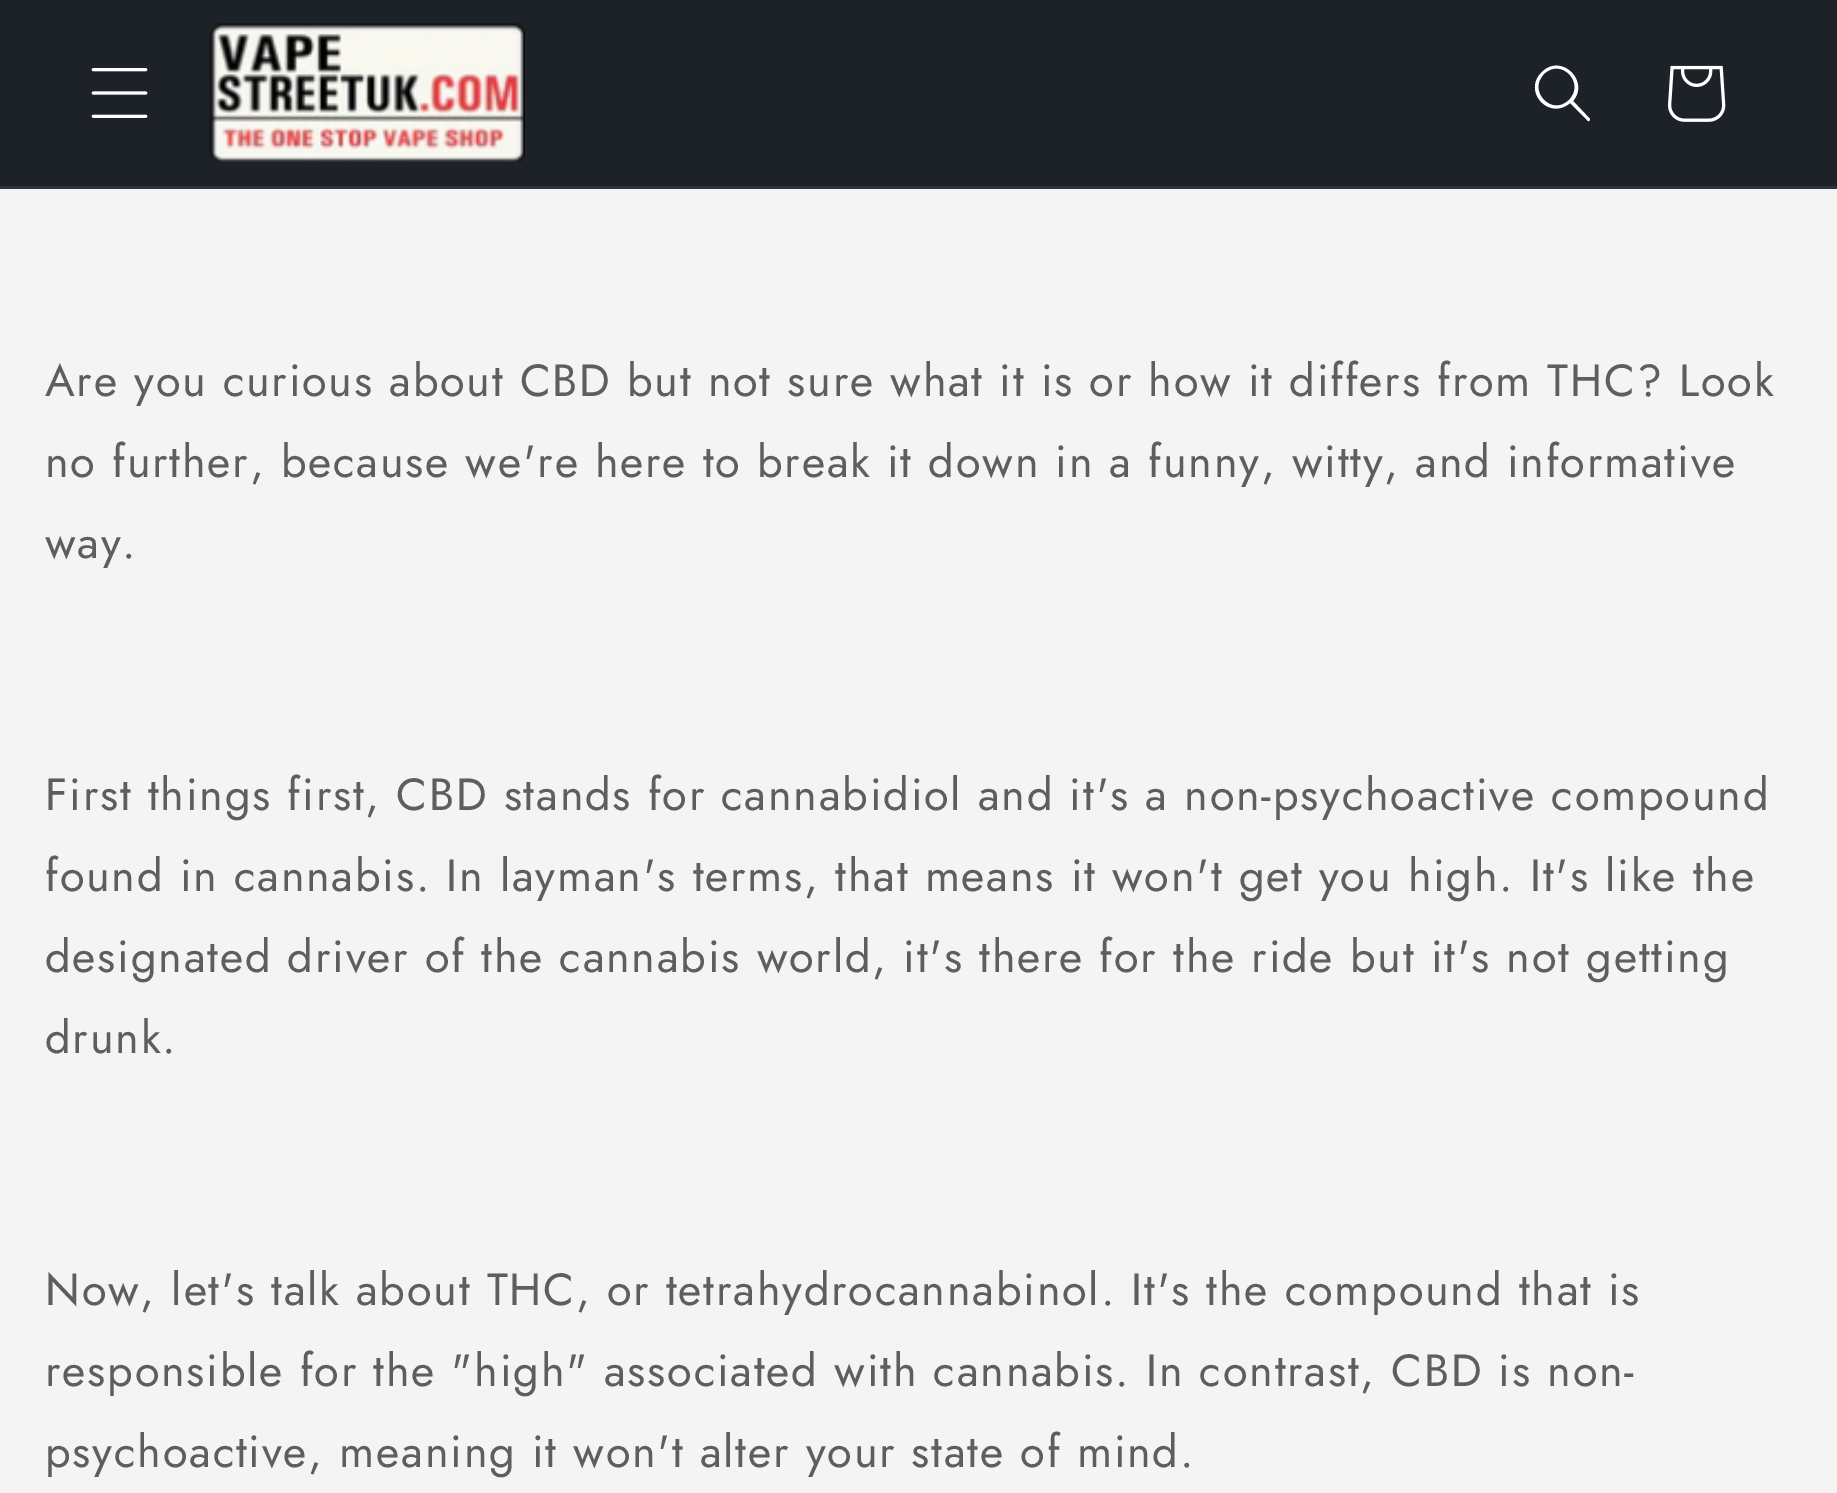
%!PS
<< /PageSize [1837 1493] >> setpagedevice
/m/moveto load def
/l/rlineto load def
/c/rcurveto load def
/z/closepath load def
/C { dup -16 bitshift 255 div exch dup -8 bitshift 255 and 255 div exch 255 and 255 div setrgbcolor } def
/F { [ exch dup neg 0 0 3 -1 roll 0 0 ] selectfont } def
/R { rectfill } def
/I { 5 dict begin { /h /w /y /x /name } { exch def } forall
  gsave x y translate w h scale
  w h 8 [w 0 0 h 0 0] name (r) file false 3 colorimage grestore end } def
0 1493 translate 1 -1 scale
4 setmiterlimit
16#F4F4F4 C
0 0 1837 1493 R
16#1C2228 C
0 0 1837 186 R
16#2E3439 C
0 186 1837 3 R
(1.rgb) 91 68 57 50 I
(2.rgb) 209 23 316 139 I
16#FFFFFF C
1569 100 m -17 17 -42 -9 -25 -26 c 17 -17 42 9 25 26 c 1570 103 m -21 18 -48 -12 -28 -31 c 19 -19 48 9 31 29 c 17 18 l 0 2 -2 3 -3 1 c z eofill
(3.rgb) 1668 65 58 57 I
/Jost-Regular 45 F
16#5D5E5F C
45 396 m 1.8 0 (Are you curious about CBD but not sure what it is or how it differs from THC? Look) ashow
45 477 m 1.8 0 (no further, because we're here to break it down in a funny, witty, and informative) ashow
45 558 m 1.8 0 (way.) ashow
45 810 m 1.8 0 (First things first, CBD stands for cannabidiol and it's a non-psychoactive compound) ashow
45 891 m 1.8 0 (found in cannabis. In layman's terms, that means it won't get you high. It's like the) ashow
45 972 m 1.8 0 (designated driver of the cannabis world, it's there for the ride but it's not getting) ashow
45 1053 m 1.8 0 (drunk.) ashow
45 1305 m 1.8 0 (Now, let's talk about THC, or tetrahydrocannabinol. It's the compound that is) ashow
45 1386 m 1.8 0 (responsible for the "high" associated with cannabis. In contrast, CBD is non-) ashow
45 1467 m 1.8 0 (psychoactive, meaning it won't alter your state of mind.) ashow
showpage
